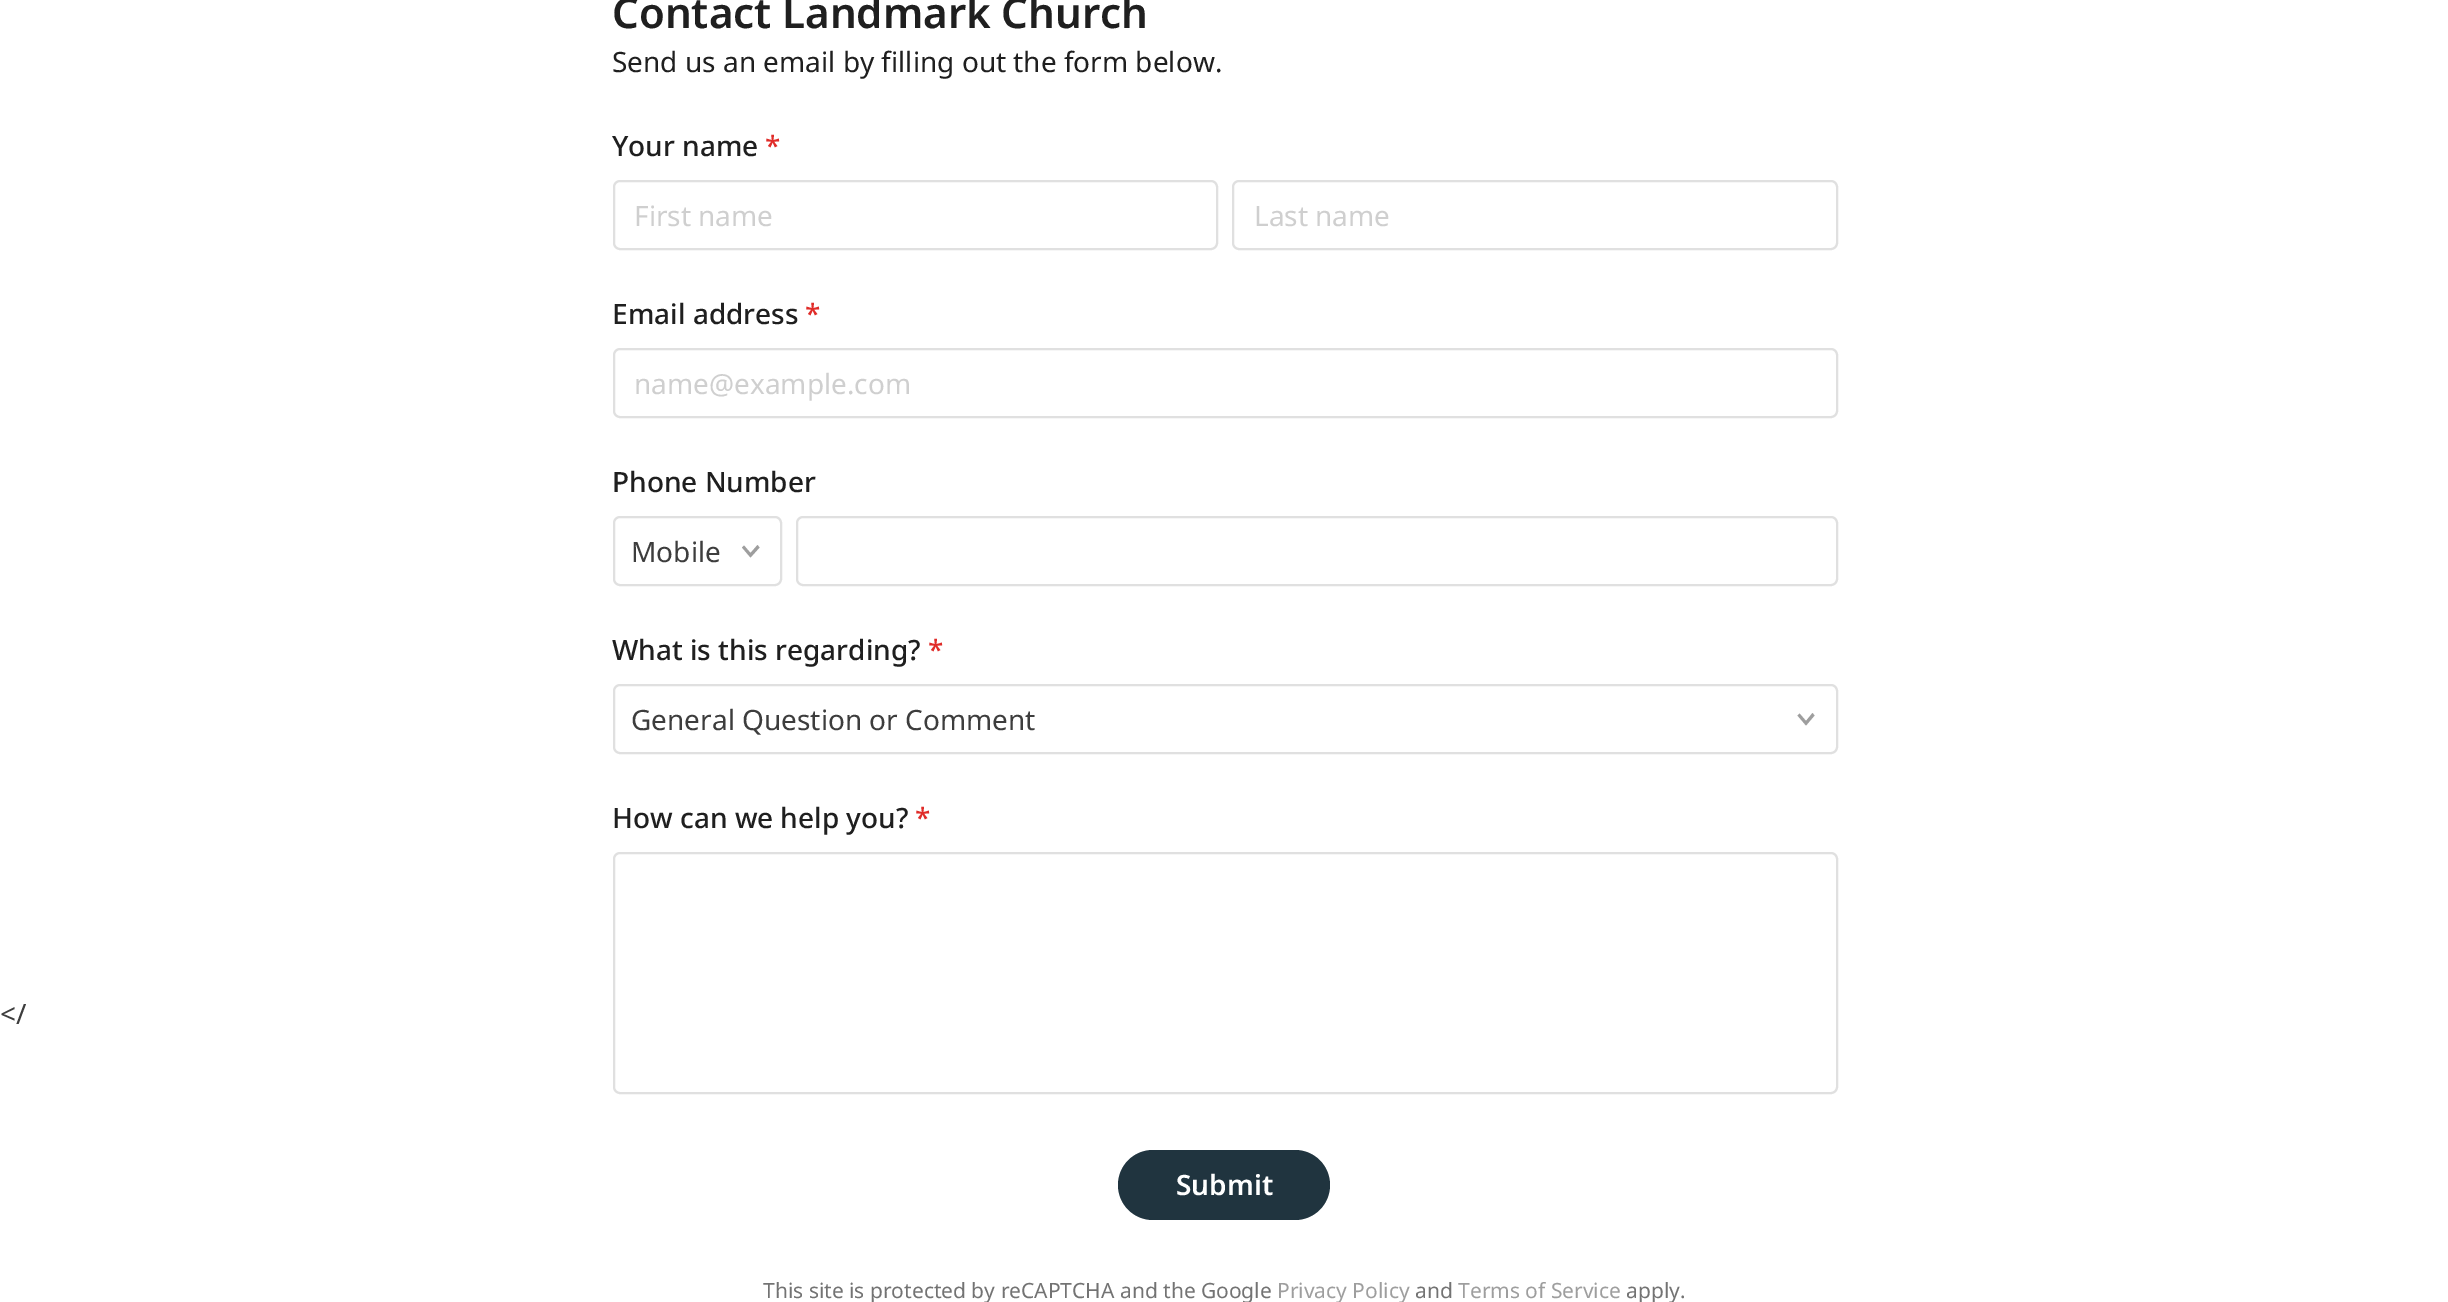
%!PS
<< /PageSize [2448 1302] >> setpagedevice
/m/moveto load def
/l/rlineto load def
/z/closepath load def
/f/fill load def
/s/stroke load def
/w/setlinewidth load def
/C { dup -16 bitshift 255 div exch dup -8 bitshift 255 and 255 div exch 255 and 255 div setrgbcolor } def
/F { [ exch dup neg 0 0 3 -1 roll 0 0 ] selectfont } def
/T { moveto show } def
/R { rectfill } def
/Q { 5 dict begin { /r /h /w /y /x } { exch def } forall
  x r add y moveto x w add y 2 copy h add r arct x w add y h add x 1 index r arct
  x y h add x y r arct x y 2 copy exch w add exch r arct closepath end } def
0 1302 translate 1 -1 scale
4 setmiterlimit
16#FFFFFF C
0 0 2448 1302 R
/NotoSans-Regular 28 F
16#3D3D3D C
(</) 0 1024 T
/NotoSans-SemiBold 42 F
16#1F1F1F C
(Contact Landmark Church) 612 28 T
/NotoSans-Regular 28 F
(Send us an email by filling out the form below.) 612 72 T
/NotoSans-Medium 28 F
(Your name) 612 156 T
16#E02C29 C
(*) 765 156 T
16#E0E0E0 C
2 w
614 181 603 68 6 Q s
/NotoSans-Regular 28 F
16#CFCFCF C
(First name) 634 226 T
16#E0E0E0 C
1233 181 604 68 6 Q s
16#CFCFCF C
(Last name) 1254 226 T
/NotoSans-Medium 28 F
16#1F1F1F C
(Email address) 612 324 T
16#E02C29 C
(*) 805 324 T
16#E0E0E0 C
614 349 1223 68 6 Q s
/NotoSans-Regular 28 F
16#CFCFCF C
(name@example.com) 634 394 T
/NotoSans-Medium 28 F
16#1F1F1F C
(Phone Number) 612 492 T
16#9E9E9E C
759.5 547.5 m -2 -2.5 l -7 8 l -6.5 -7.5 l -2 2 l 8.5 10 l z f
16#E0E0E0 C
614 517 167 68 6 Q s
/NotoSans-Regular 28 F
16#3D3D3D C
(Mobile) 631 562 T
16#E0E0E0 C
797 517 1040 68 6 Q s
/NotoSans-Medium 28 F
16#1F1F1F C
(What is this regarding?) 612 660 T
16#E02C29 C
(*) 928 660 T
16#9E9E9E C
1814.5 715.5 m -2 -2.5 l -6.5 8 l -6.5 -7.5 l -2 2 l 8.5 10 l z f
16#E0E0E0 C
614 685 1223 68 6 Q s
/NotoSans-Regular 28 F
16#3D3D3D C
(General Question or Comment) 631 730 T
/NotoSans-Medium 28 F
16#1F1F1F C
(How can we help you?) 612 828 T
16#E02C29 C
(*) 915 828 T
16#E0E0E0 C
614 853 1223 240 6 Q s
16#20343F C
1118 1150 212 70 35 Q f
/NotoSans-SemiBold 28 F
16#FFFFFF C
(Submit) 1176 1195 T
/NotoSans-Regular 21 F
16#737373 C
(This site is protected by reCAPTCHA and the Google) 763 1298 T
16#9E9E9E C
(Privacy Policy) 1277 1298 T
16#737373 C
(and) 1415 1298 T
16#9E9E9E C
(Terms of Service) 1458 1298 T
16#737373 C
(apply.) 1626 1298 T
showpage
